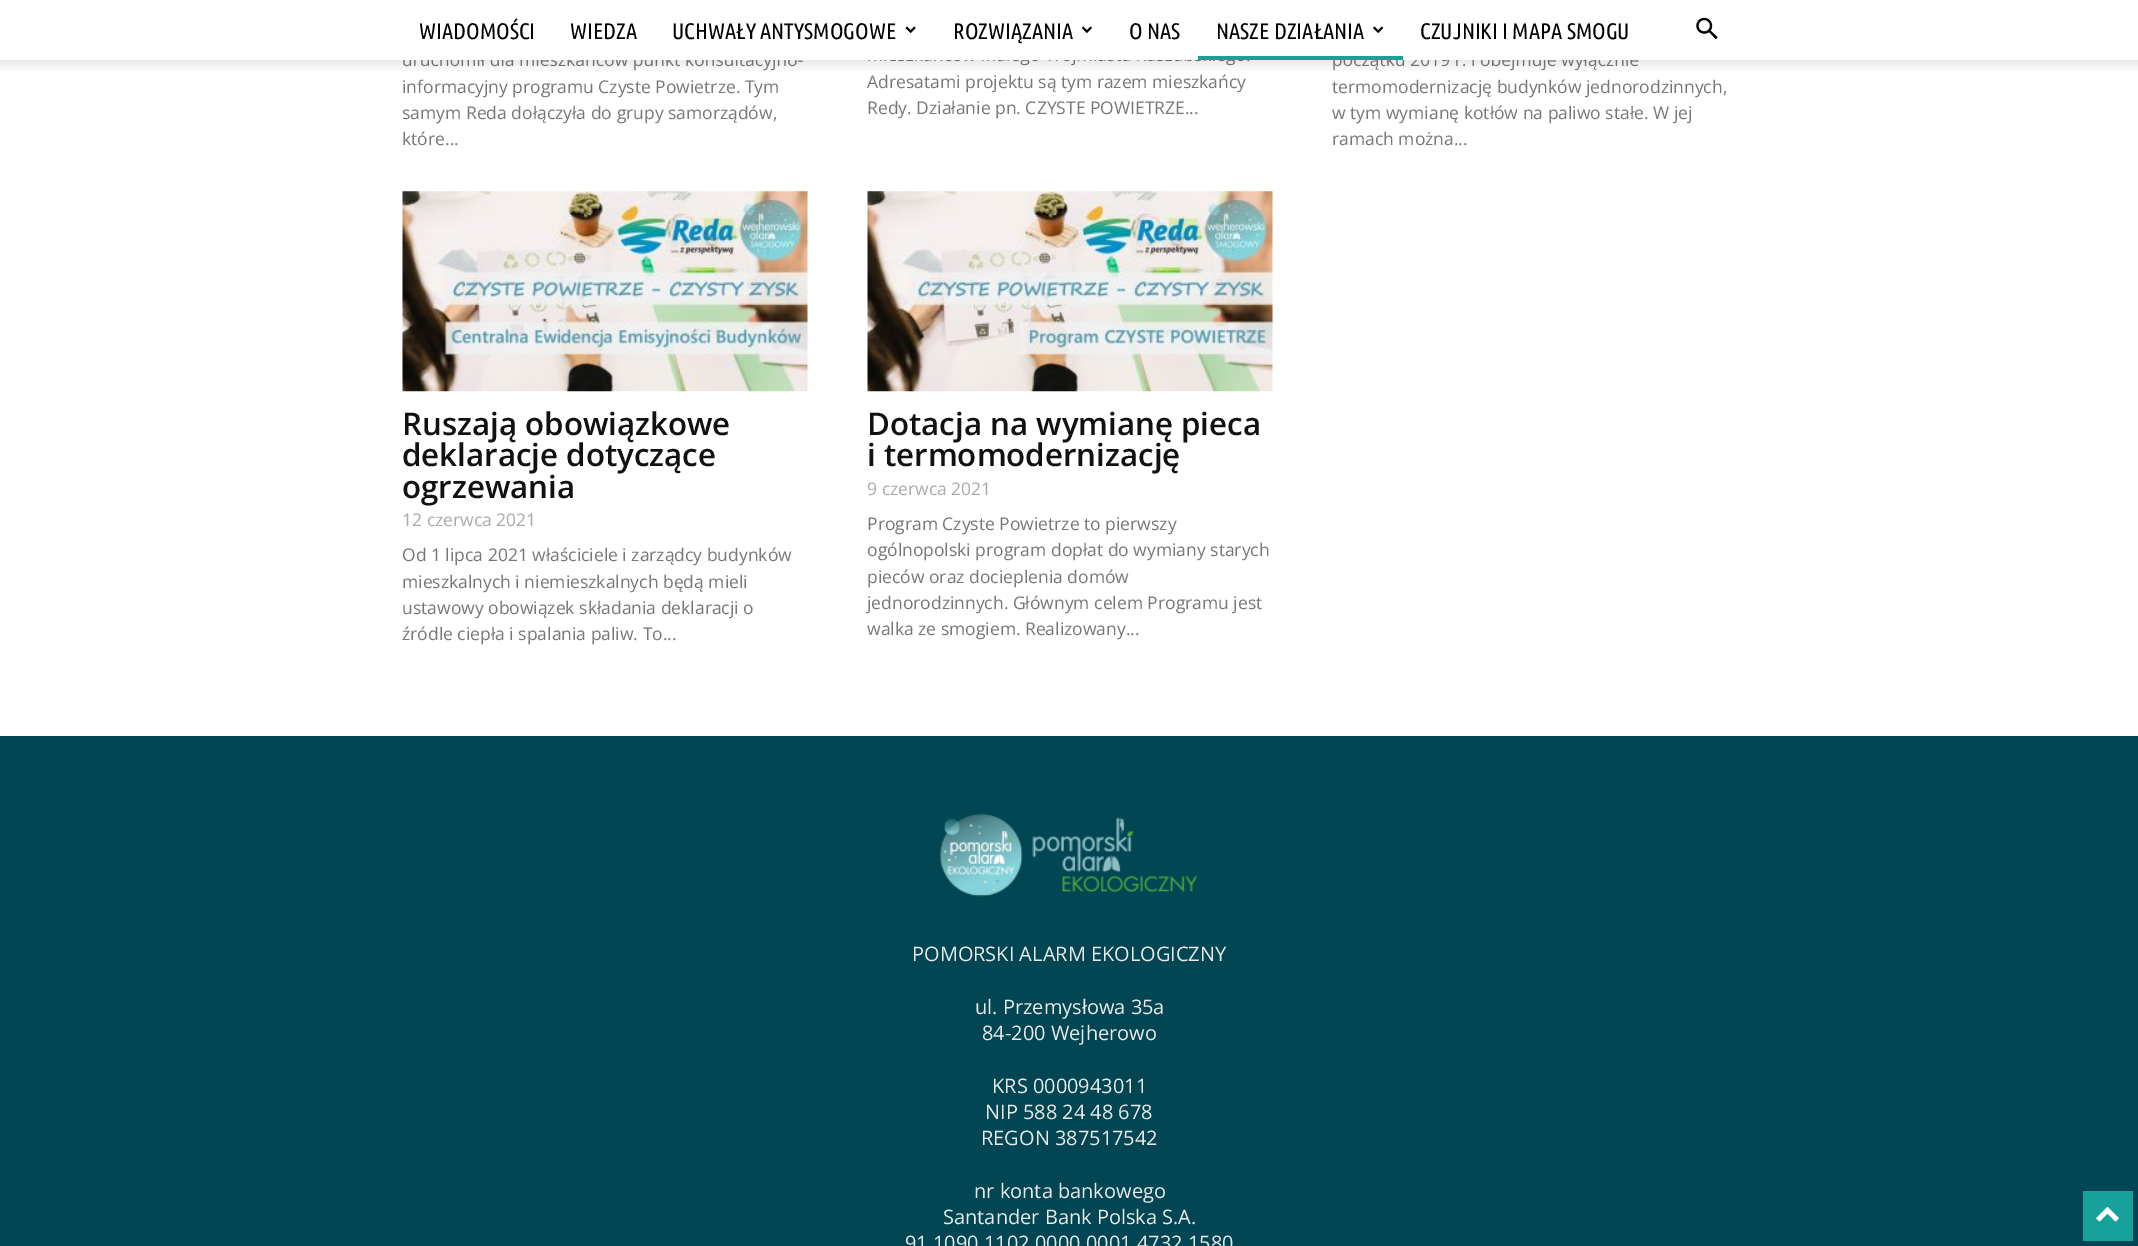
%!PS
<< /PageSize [2138 1246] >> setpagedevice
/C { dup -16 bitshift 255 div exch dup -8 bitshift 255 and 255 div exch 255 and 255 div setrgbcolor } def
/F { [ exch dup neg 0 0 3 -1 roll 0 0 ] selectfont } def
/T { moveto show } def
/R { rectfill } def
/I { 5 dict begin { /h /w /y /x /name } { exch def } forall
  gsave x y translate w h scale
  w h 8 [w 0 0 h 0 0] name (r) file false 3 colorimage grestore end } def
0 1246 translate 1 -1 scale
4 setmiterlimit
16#FFFFFF C
0 0 2138 1246 R
/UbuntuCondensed-Regular 22.5 F
16#000000 C
(WIADOMOŚCI) 419 39 T
(WIEDZA) 570 39 T
(UCHWAŁY ANTYSMOGOWE) 672 39 T
(1.rgb) 905 26 11 7 I
(ROZWIĄZANIA) 953 39 T
(2.rgb) 1081 26 11 7 I
(O NAS) 1129 39 T
(NASZE DZIAŁANIA) 1216 39 T
(3.rgb) 1373 26 11 7 I
16#16A29A C
1198 56 205 4 R
16#000000 C
(CZUJNIKI I MAPA SMOGU) 1420 39 T
(4.rgb) 1696 17 22 22 I
/OpenSans-Regular 17.5 F
16#777777 C
(-) 798 66 T
(.) 1462 66 T
(5.rgb) 0 60 2138 11 I
(informacyjny programu Czyste Powietrze. Tym) 402 93 T
(samym Reda dołączyła do grupy samorządów,) 402 119 T
(które...) 402 145 T
(Adresatami projektu są tym razem mieszkańcy) 867 88 T
(Redy. Działanie pn. CZYSTE POWIETRZE...) 867 114 T
(termomodernizację budynków jednorodzinnych,) 1332 93 T
(w tym wymianę kotłów na paliwo stałe. W jej) 1332 119 T
(ramach można...) 1332 145 T
(6.rgb) 402 191 406 201 I
/OpenSans-SemiBold 31.25 F
16#111111 C
(Ruszają obowiązkowe) 402 435 T
(deklaracje dotyczące) 402 466 T
(ogrzewania) 402 498 T
/OpenSans-Regular 17.5 F
16#AAAAAA C
(12 czerwca 2021) 402 526 T
16#777777 C
(Od 1 lipca 2021 właściciele i zarządcy budynków) 402 561 T
(mieszkalnych i niemieszkalnych będą mieli) 402 588 T
(ustawowy obowiązek składania deklaracji o) 402 614 T
(źródle ciepła i spalania paliw. To...) 402 640 T
(7.rgb) 867 191 406 201 I
/OpenSans-SemiBold 31.25 F
16#111111 C
(Dotacja na wymianę pieca) 867 435 T
(i termomodernizację) 867 466 T
/OpenSans-Regular 17.5 F
16#AAAAAA C
(9 czerwca 2021) 867 495 T
16#777777 C
(Program Czyste Powietrze to pierwszy) 867 530 T
(ogólnopolski program dopłat do wymiany starych) 867 556 T
(pieców oraz docieplenia domów) 867 583 T
(jednorodzinnych. Głównym celem Programu jest) 867 609 T
(walka ze smogiem. Realizowany...) 867 635 T
16#014652 C
0 736 2138 510 R
(8.rgb) 940 813 258 84 I
/OpenSans-Regular 20 F
16#EAEAEA C
(POMORSKI ALARM EKOLOGICZNY) 912 961 T
(ul. Przemysłowa 35a) 975 1014 T
(84-200 Wejherowo) 982 1040 T
(KRS 0000943011) 992 1093 T
(NIP 588 24 48 678) 985 1119 T
(REGON 387517542) 981 1145 T
(nr konta bankowego) 974 1198 T
(Santander Bank Polska S.A.) 943 1224 T
(91 1090 1102 0000 0001 4732 1580) 905 1250 T
16#16A29A C
2083 1191 50 50 R
(9.rgb) 2096 1207 23 15 I
showpage
